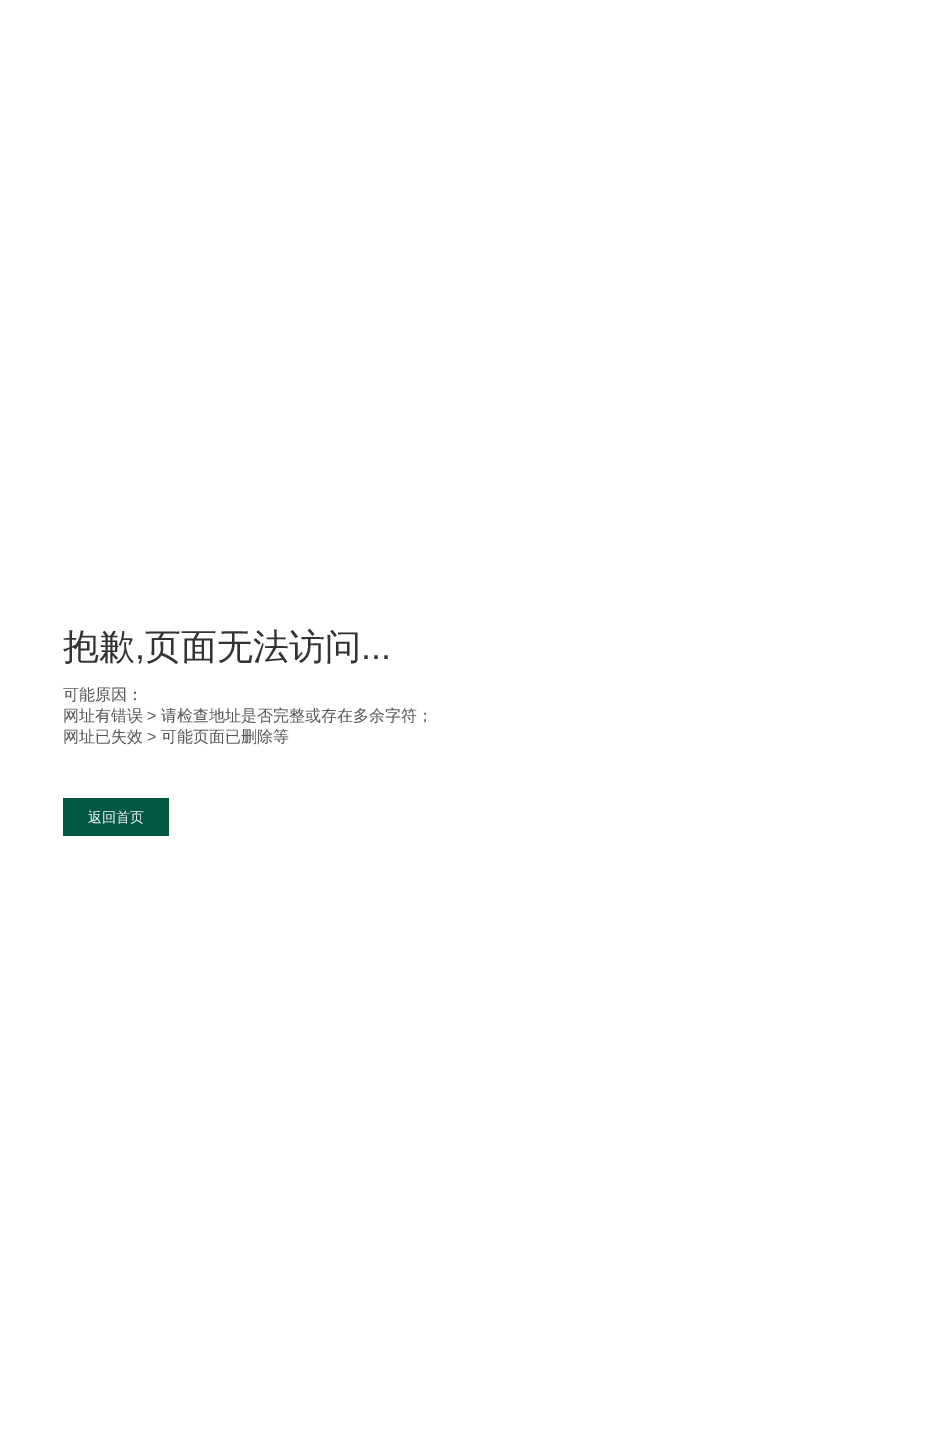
%!PS
<< /PageSize [925 1448] >> setpagedevice
/C { dup -16 bitshift 255 div exch dup -8 bitshift 255 and 255 div exch 255 and 255 div setrgbcolor } def
/F { [ exch dup neg 0 0 3 -1 roll 0 0 ] selectfont } def
/T { moveto show } def
/R { rectfill } def
0 1448 translate 1 -1 scale
4 setmiterlimit
16#FFFFFF C
0 0 925 1448 R
/WenQuanYiZenHei-Medium 36 F
16#333333 C
(抱歉) 63 659 T
/LiberationSans-Regular 36 F
(,) 135 659 T
/WenQuanYiZenHei-Medium 36 F
(页面无法访问) 145 659 T
/LiberationSans-Regular 36 F
(...) 361 659 T
/WenQuanYiZenHei-Medium 16 F
16#555555 C
(可能原因：) 63 700 T
(网址有错误) 63 721 T
/LiberationSans-Regular 16 F
(>) 147 721 T
/WenQuanYiZenHei-Medium 16 F
(请检查地址是否完整或存在多余字符；) 161 721 T
(网址已失效) 63 742 T
/LiberationSans-Regular 16 F
(>) 147 742 T
/WenQuanYiZenHei-Medium 16 F
(可能页面已删除等) 161 742 T
16#005845 C
63 798 106 38 R
/WenQuanYiZenHei-Medium 14 F
16#FFFFFF C
(返回首页) 88 822 T
showpage
